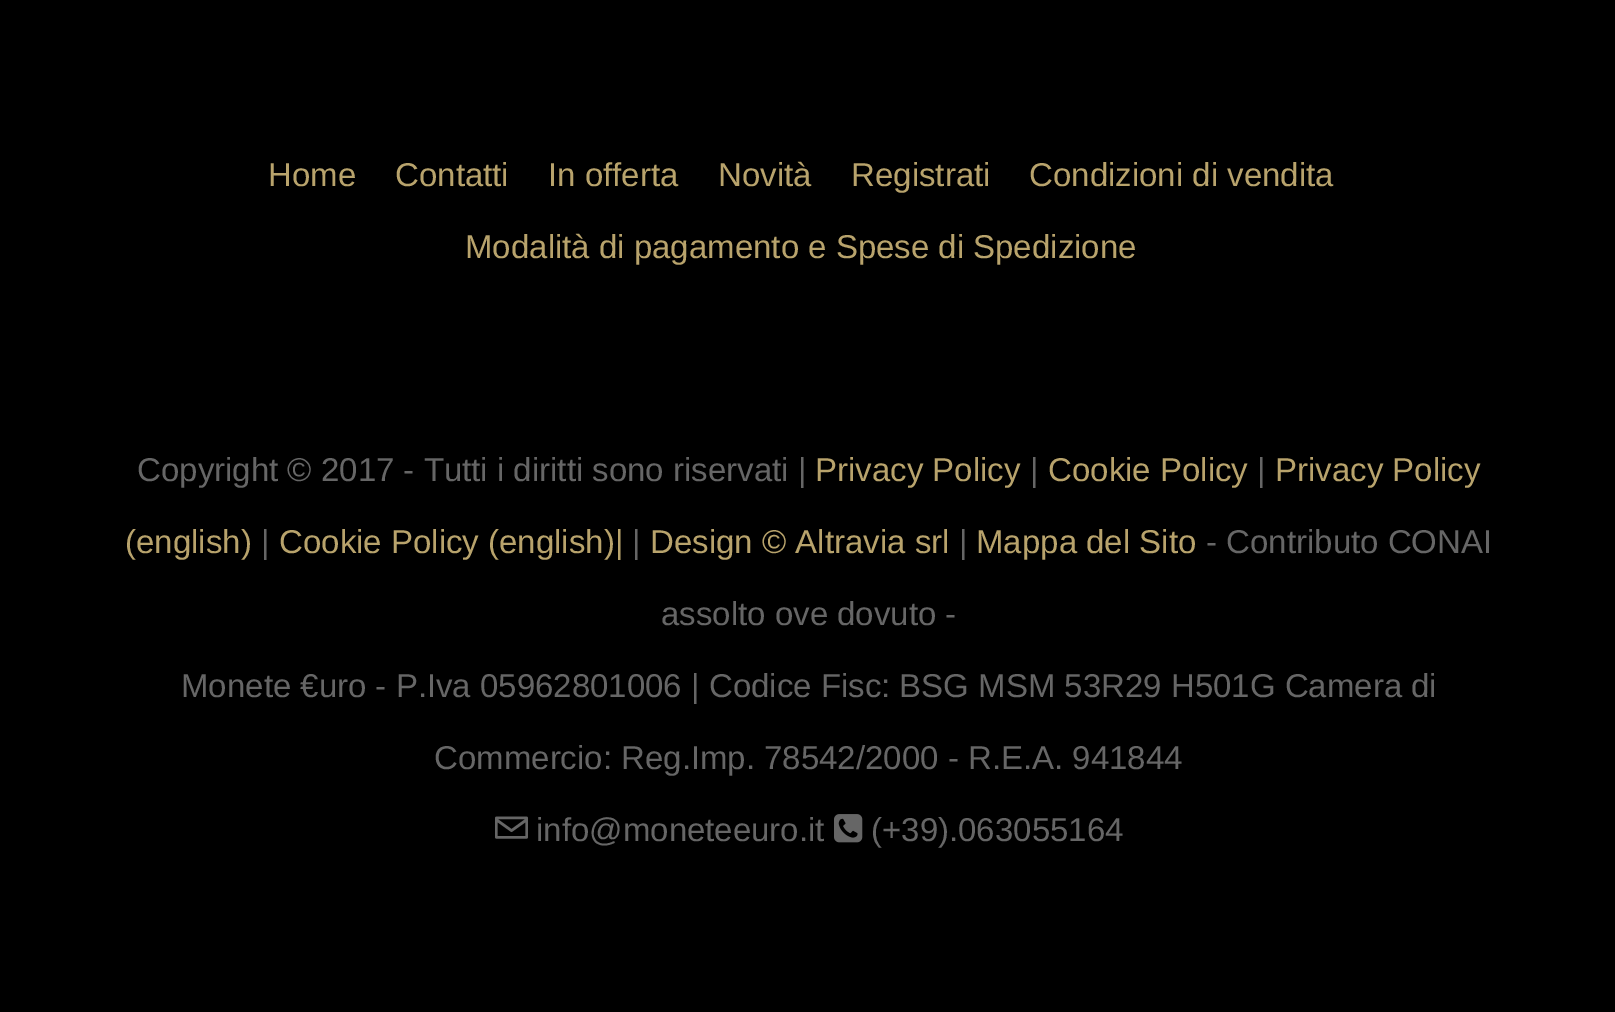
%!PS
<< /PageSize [1615 1012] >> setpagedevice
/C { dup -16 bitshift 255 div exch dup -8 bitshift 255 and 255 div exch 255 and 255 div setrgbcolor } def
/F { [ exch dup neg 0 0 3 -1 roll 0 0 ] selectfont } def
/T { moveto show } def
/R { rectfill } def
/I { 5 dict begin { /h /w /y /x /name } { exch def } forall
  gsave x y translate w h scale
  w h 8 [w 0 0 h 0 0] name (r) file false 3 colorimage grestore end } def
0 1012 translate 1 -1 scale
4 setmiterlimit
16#000000 C
0 0 1615 1012 R
/Arimo-Regular 33 F
16#B8A36C C
(Home) 268 186 T
(Contatti) 395 186 T
(In offerta) 548 186 T
(Novità) 718 186 T
(Registrati) 851 186 T
(Condizioni di vendita) 1029 186 T
(Modalità di pagamento e Spese di Spedizione) 465 258 T
16#666666 C
(Copyright © 2017 - Tutti i diritti sono riservati |) 137 481 T
16#B8A36C C
(Privacy Policy) 815 481 T
16#666666 C
(|) 1030 481 T
16#B8A36C C
(Cookie Policy) 1048 481 T
16#666666 C
(|) 1257 481 T
16#B8A36C C
(Privacy Policy) 1275 481 T
(\(english\)) 125 553 T
16#666666 C
(|) 261 553 T
16#B8A36C C
(Cookie Policy \(english\)|) 279 553 T
16#666666 C
(|) 632 553 T
16#B8A36C C
(Design © Altravia srl) 650 553 T
16#666666 C
(|) 959 553 T
16#B8A36C C
(Mappa del Sito) 976 553 T
16#666666 C
(- Contributo CONAI) 1206 553 T
(assolto ove dovuto -) 661 625 T
(Monete €uro - P.Iva 05962801006 | Codice Fisc: BSG MSM 53R29 H501G Camera di) 181 697 T
(Commercio: Reg.Imp. 78542/2000 - R.E.A. 941844) 434 769 T
(1.rgb) 495 816 33 23 I
(info@moneteeuro.it) 536 841 T
(2.rgb) 834 814 29 29 I
(\(+39\).063055164) 871 841 T
showpage
